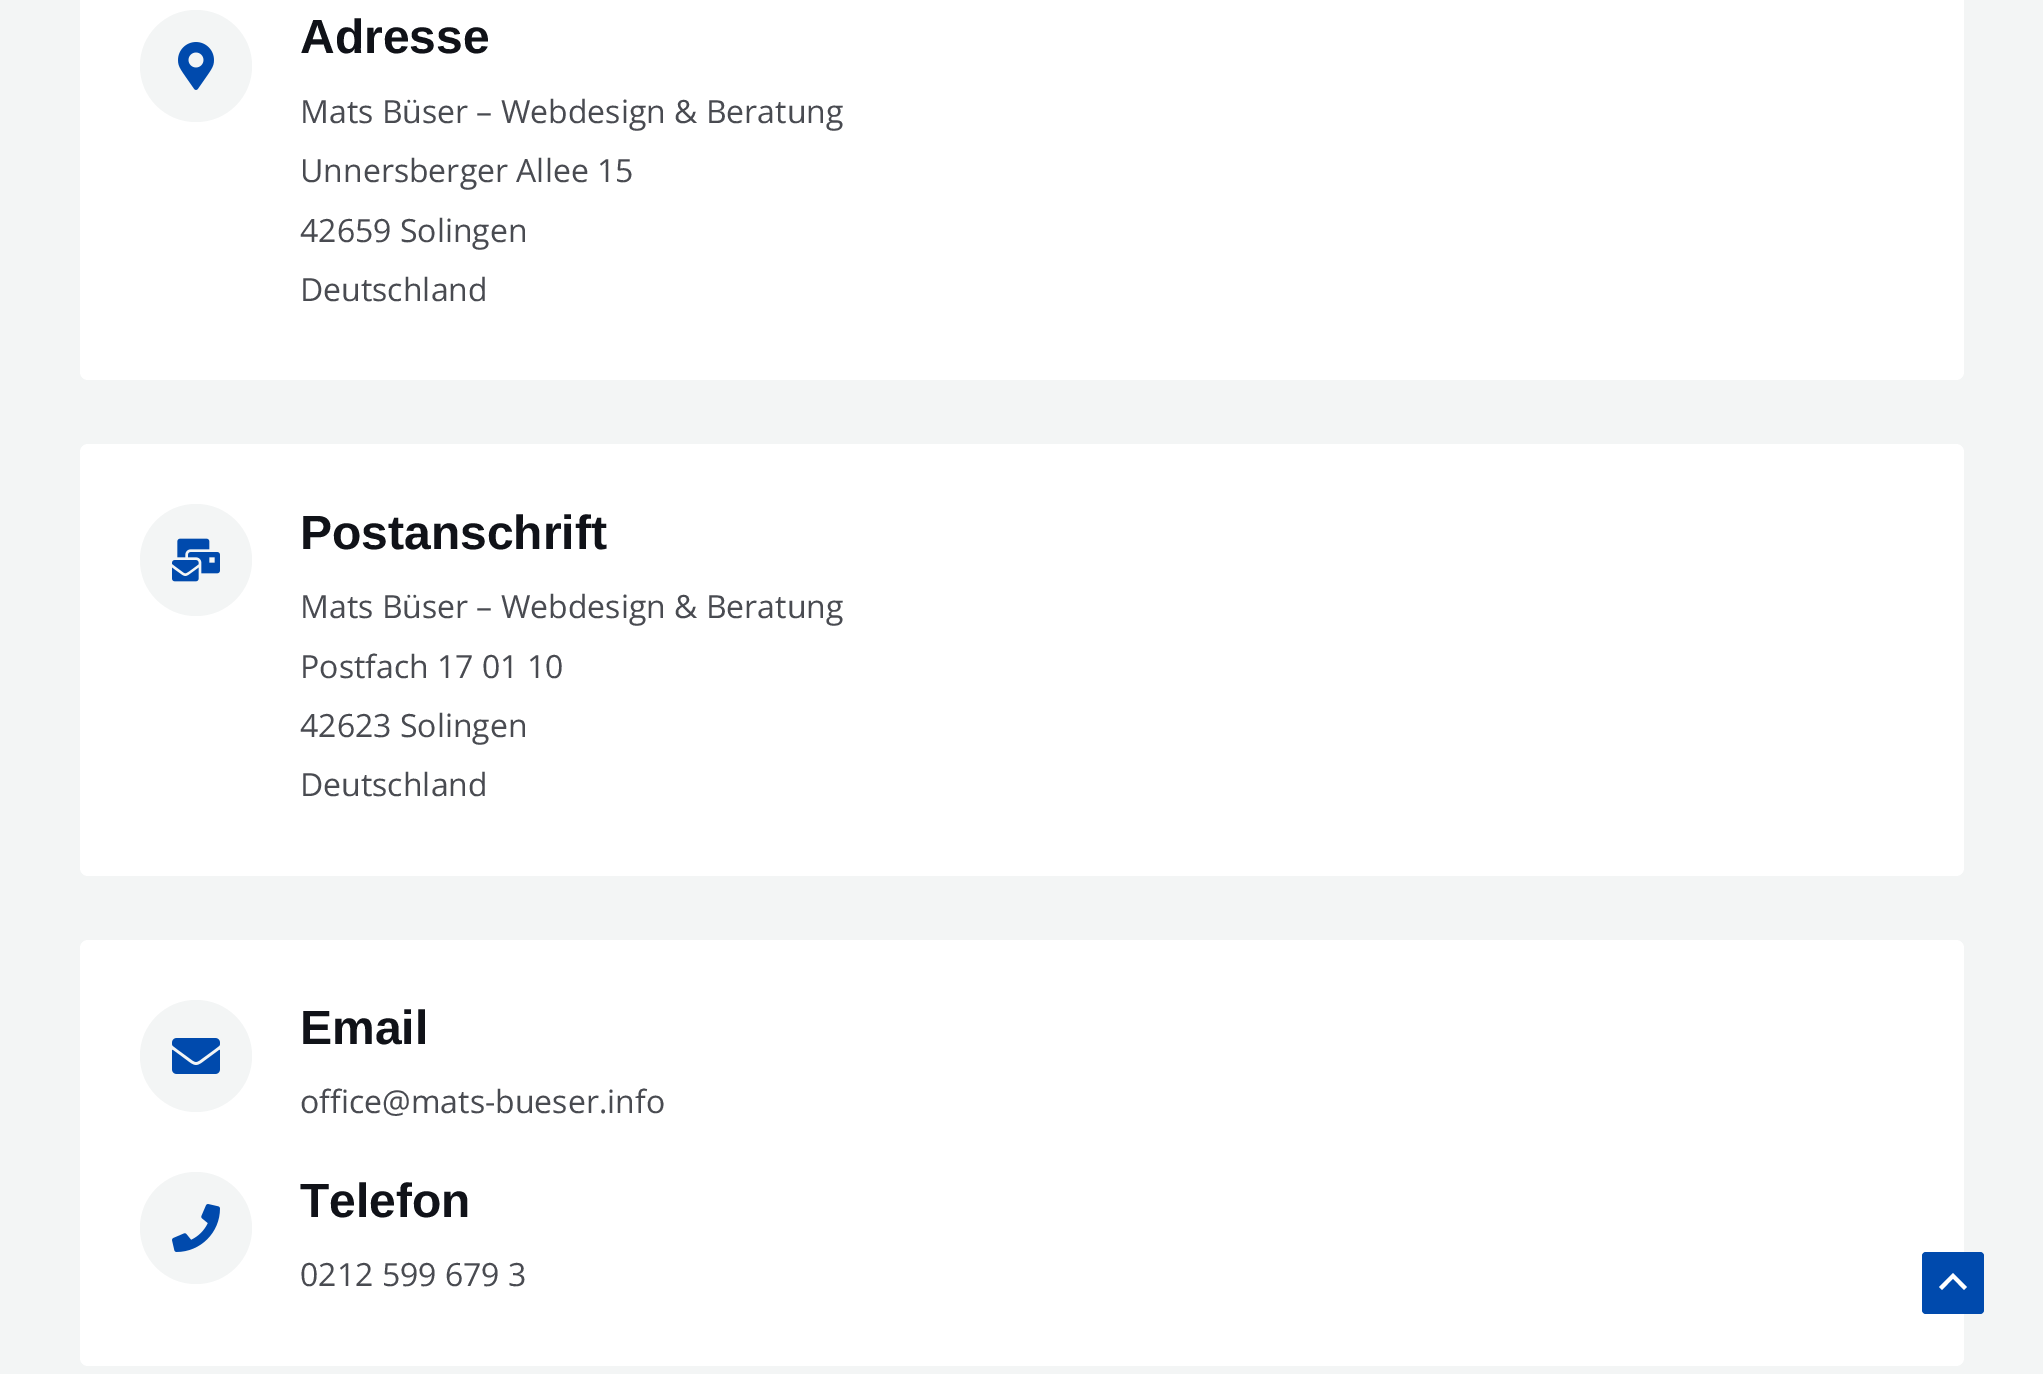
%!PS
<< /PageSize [2043 1374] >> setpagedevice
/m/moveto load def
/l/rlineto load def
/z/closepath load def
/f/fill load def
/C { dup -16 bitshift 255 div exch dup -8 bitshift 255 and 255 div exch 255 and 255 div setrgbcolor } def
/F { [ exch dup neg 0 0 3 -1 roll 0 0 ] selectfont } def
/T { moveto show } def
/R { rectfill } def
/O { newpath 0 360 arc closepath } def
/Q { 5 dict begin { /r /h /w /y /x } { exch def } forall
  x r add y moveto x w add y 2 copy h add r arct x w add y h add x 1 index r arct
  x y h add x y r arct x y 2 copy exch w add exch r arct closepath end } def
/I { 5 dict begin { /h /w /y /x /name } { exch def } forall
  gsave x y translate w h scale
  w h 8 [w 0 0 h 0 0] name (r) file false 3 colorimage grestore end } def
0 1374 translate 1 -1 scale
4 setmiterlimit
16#F3F5F5 C
0 0 2043 1374 R
16#FFFFFF C
80 -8 1884 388 8 Q f
16#F3F5F5 C
196 66 56 O f
(1.rgb) 178 42 36 48 I
/LiberationSans-Bold 48 F
16#101218 C
(Adresse) 300 53 T
/OpenSans-Regular 32 F
16#494B51 C
(Mats Büser – Webdesign & Beratung) 300 123 T
(Unnersberger Allee 15) 300 182 T
(42659 Solingen) 300 242 T
(Deutschland) 300 301 T
16#FFFFFF C
80 444 1884 432 8 Q f
16#F3F5F5 C
196 560 56 O f
(2.rgb) 172 538 48 44 I
/LiberationSans-Bold 48 F
16#101218 C
(Postanschrift) 300 549 T
/OpenSans-Regular 32 F
16#494B51 C
(Mats Büser – Webdesign & Beratung) 300 618 T
(Postfach 17 01 10) 300 678 T
(42623 Solingen) 300 737 T
(Deutschland) 300 796 T
16#FFFFFF C
80 940 1884 426 8 Q f
16#F3F5F5 C
196 1056 56 O f
(3.rgb) 172 1038 48 36 I
/LiberationSans-Bold 48 F
16#101218 C
(Email) 300 1044 T
/OpenSans-Regular 32 F
16#494B51 C
(office@mats-bueser.info) 300 1113 T
16#F3F5F5 C
196 1228 56 O f
(4.rgb) 172 1204 48 48 I
/LiberationSans-Bold 48 F
16#101218 C
(Telefon) 300 1217 T
/OpenSans-Regular 32 F
16#494B51 C
(0212 599 679 3) 300 1286 T
16#004AAD C
1922 1252 62 62 4 Q f
16#FFFFFF C
1967 1287 m -14 -14 l -14 14 l 3 3 l 11 -11.5 l 11 11.5 l z f
showpage
